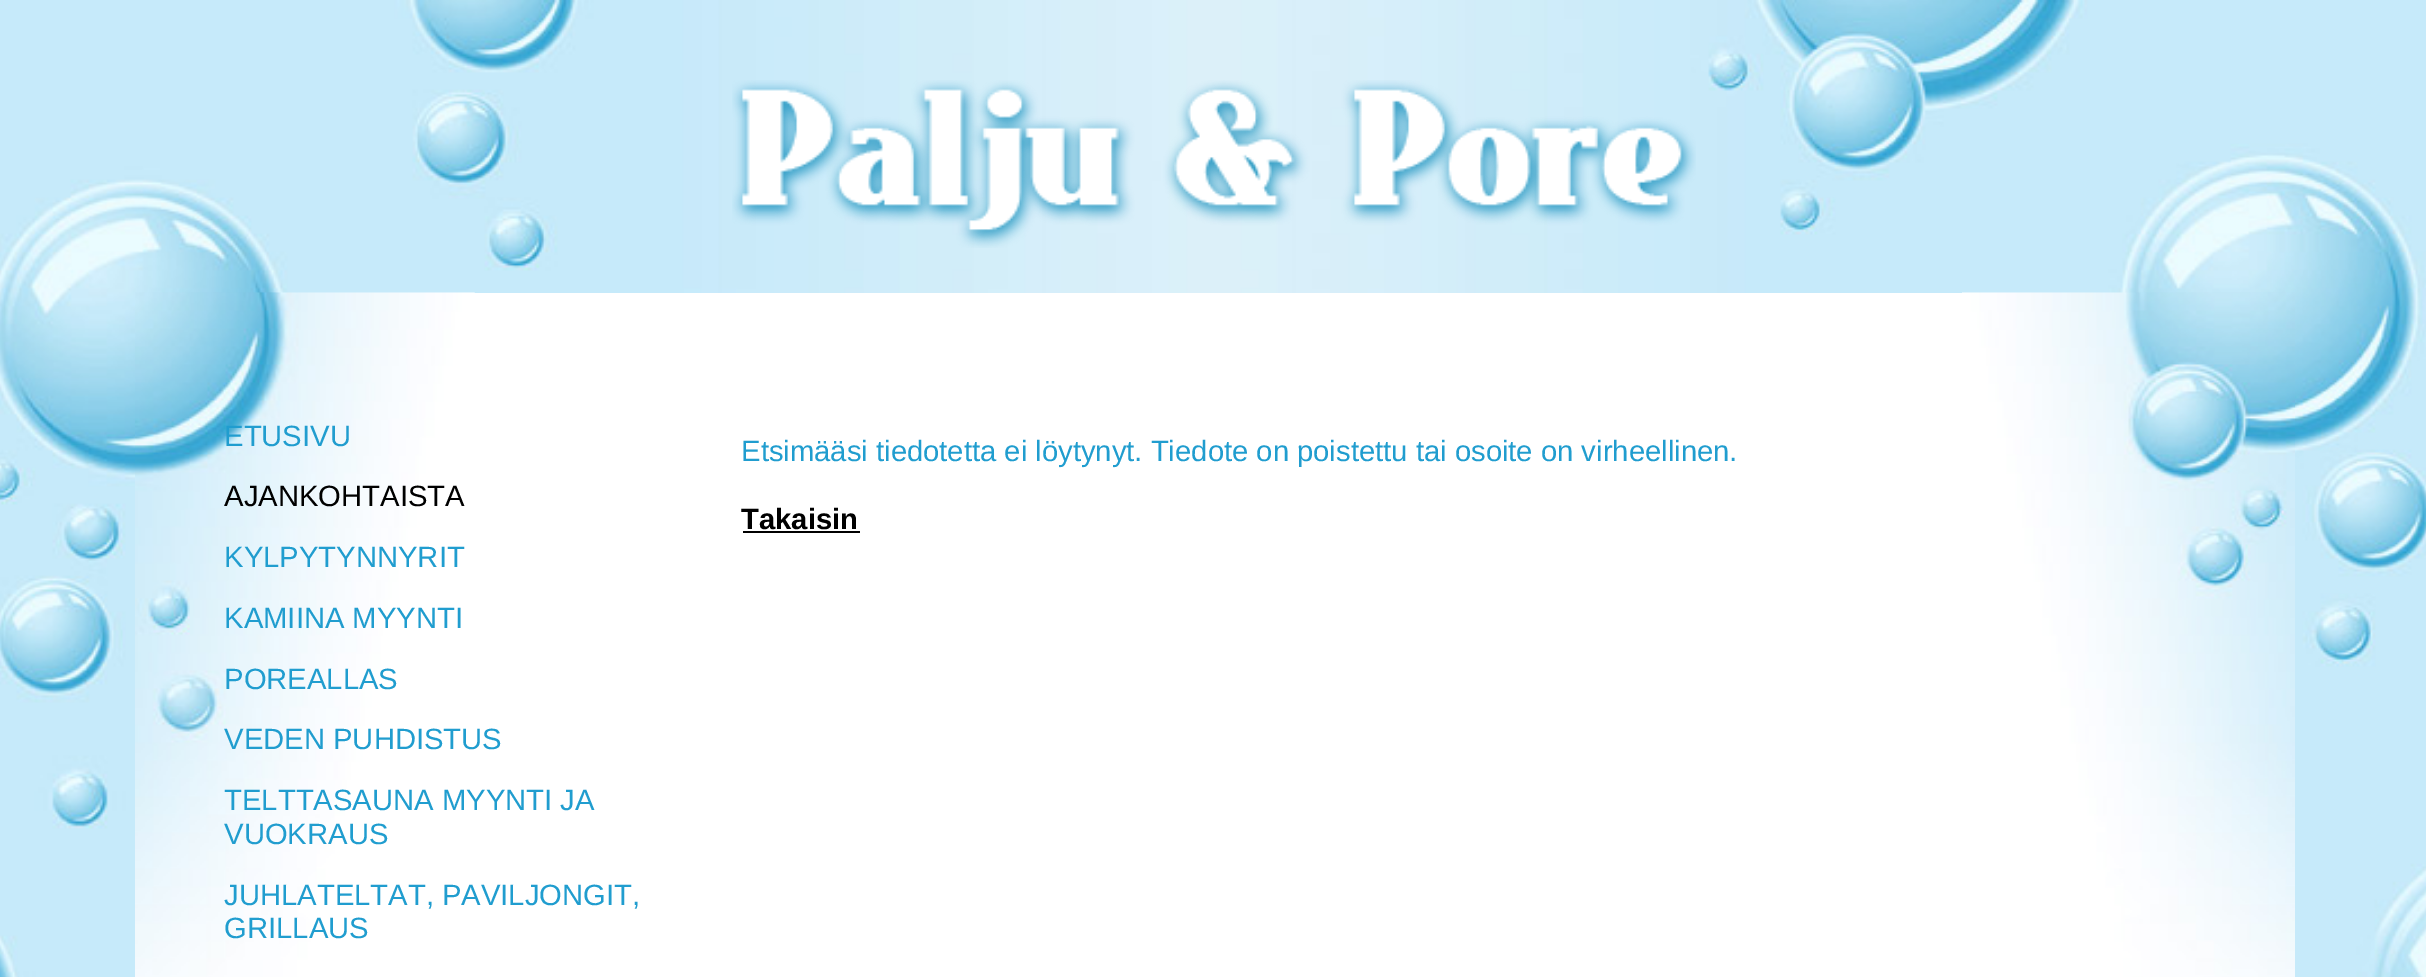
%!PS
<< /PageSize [2426 977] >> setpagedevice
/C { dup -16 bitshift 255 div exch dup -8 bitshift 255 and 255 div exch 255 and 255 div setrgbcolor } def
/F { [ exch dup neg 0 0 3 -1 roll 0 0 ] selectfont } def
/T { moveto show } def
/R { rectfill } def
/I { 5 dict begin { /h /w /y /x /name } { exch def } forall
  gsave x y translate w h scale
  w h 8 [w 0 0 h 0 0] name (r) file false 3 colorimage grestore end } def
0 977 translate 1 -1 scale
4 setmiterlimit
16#FFFFFF C
0 0 2426 977 R
(1.rgb) 0 0 2426 977 I
(2.rgb) 732 80 964 168 I
474 293 1488 684 R
(3.rgb) 135 292 340 685 I
/LiberationSans-Regular 29.25 F
16#209DCF C
(ETUSIVU) 224 446 T
16#000000 C
(AJANKOHTAISTA) 224 506 T
16#209DCF C
(KYLPYTYNNYRIT) 224 567 T
(KAMIINA MYYNTI) 224 628 T
(POREALLAS) 224 689 T
(VEDEN PUHDISTUS) 224 749 T
(TELTTASAUNA MYYNTI JA) 224 810 T
(VUOKRAUS) 224 844 T
(JUHLATELTAT, PAVILJONGIT,) 224 905 T
(GRILLAUS) 224 938 T
(4.rgb) 1962 292 333 685 I
(Etsimääsi tiedotetta ei löytynyt. Tiedote on poistettu tai osoite on virheellinen.) 741 461 T
/LiberationSans-Bold 29.25 F
16#000000 C
(Takaisin) 741 529 T
743 531 117 2 R
showpage
